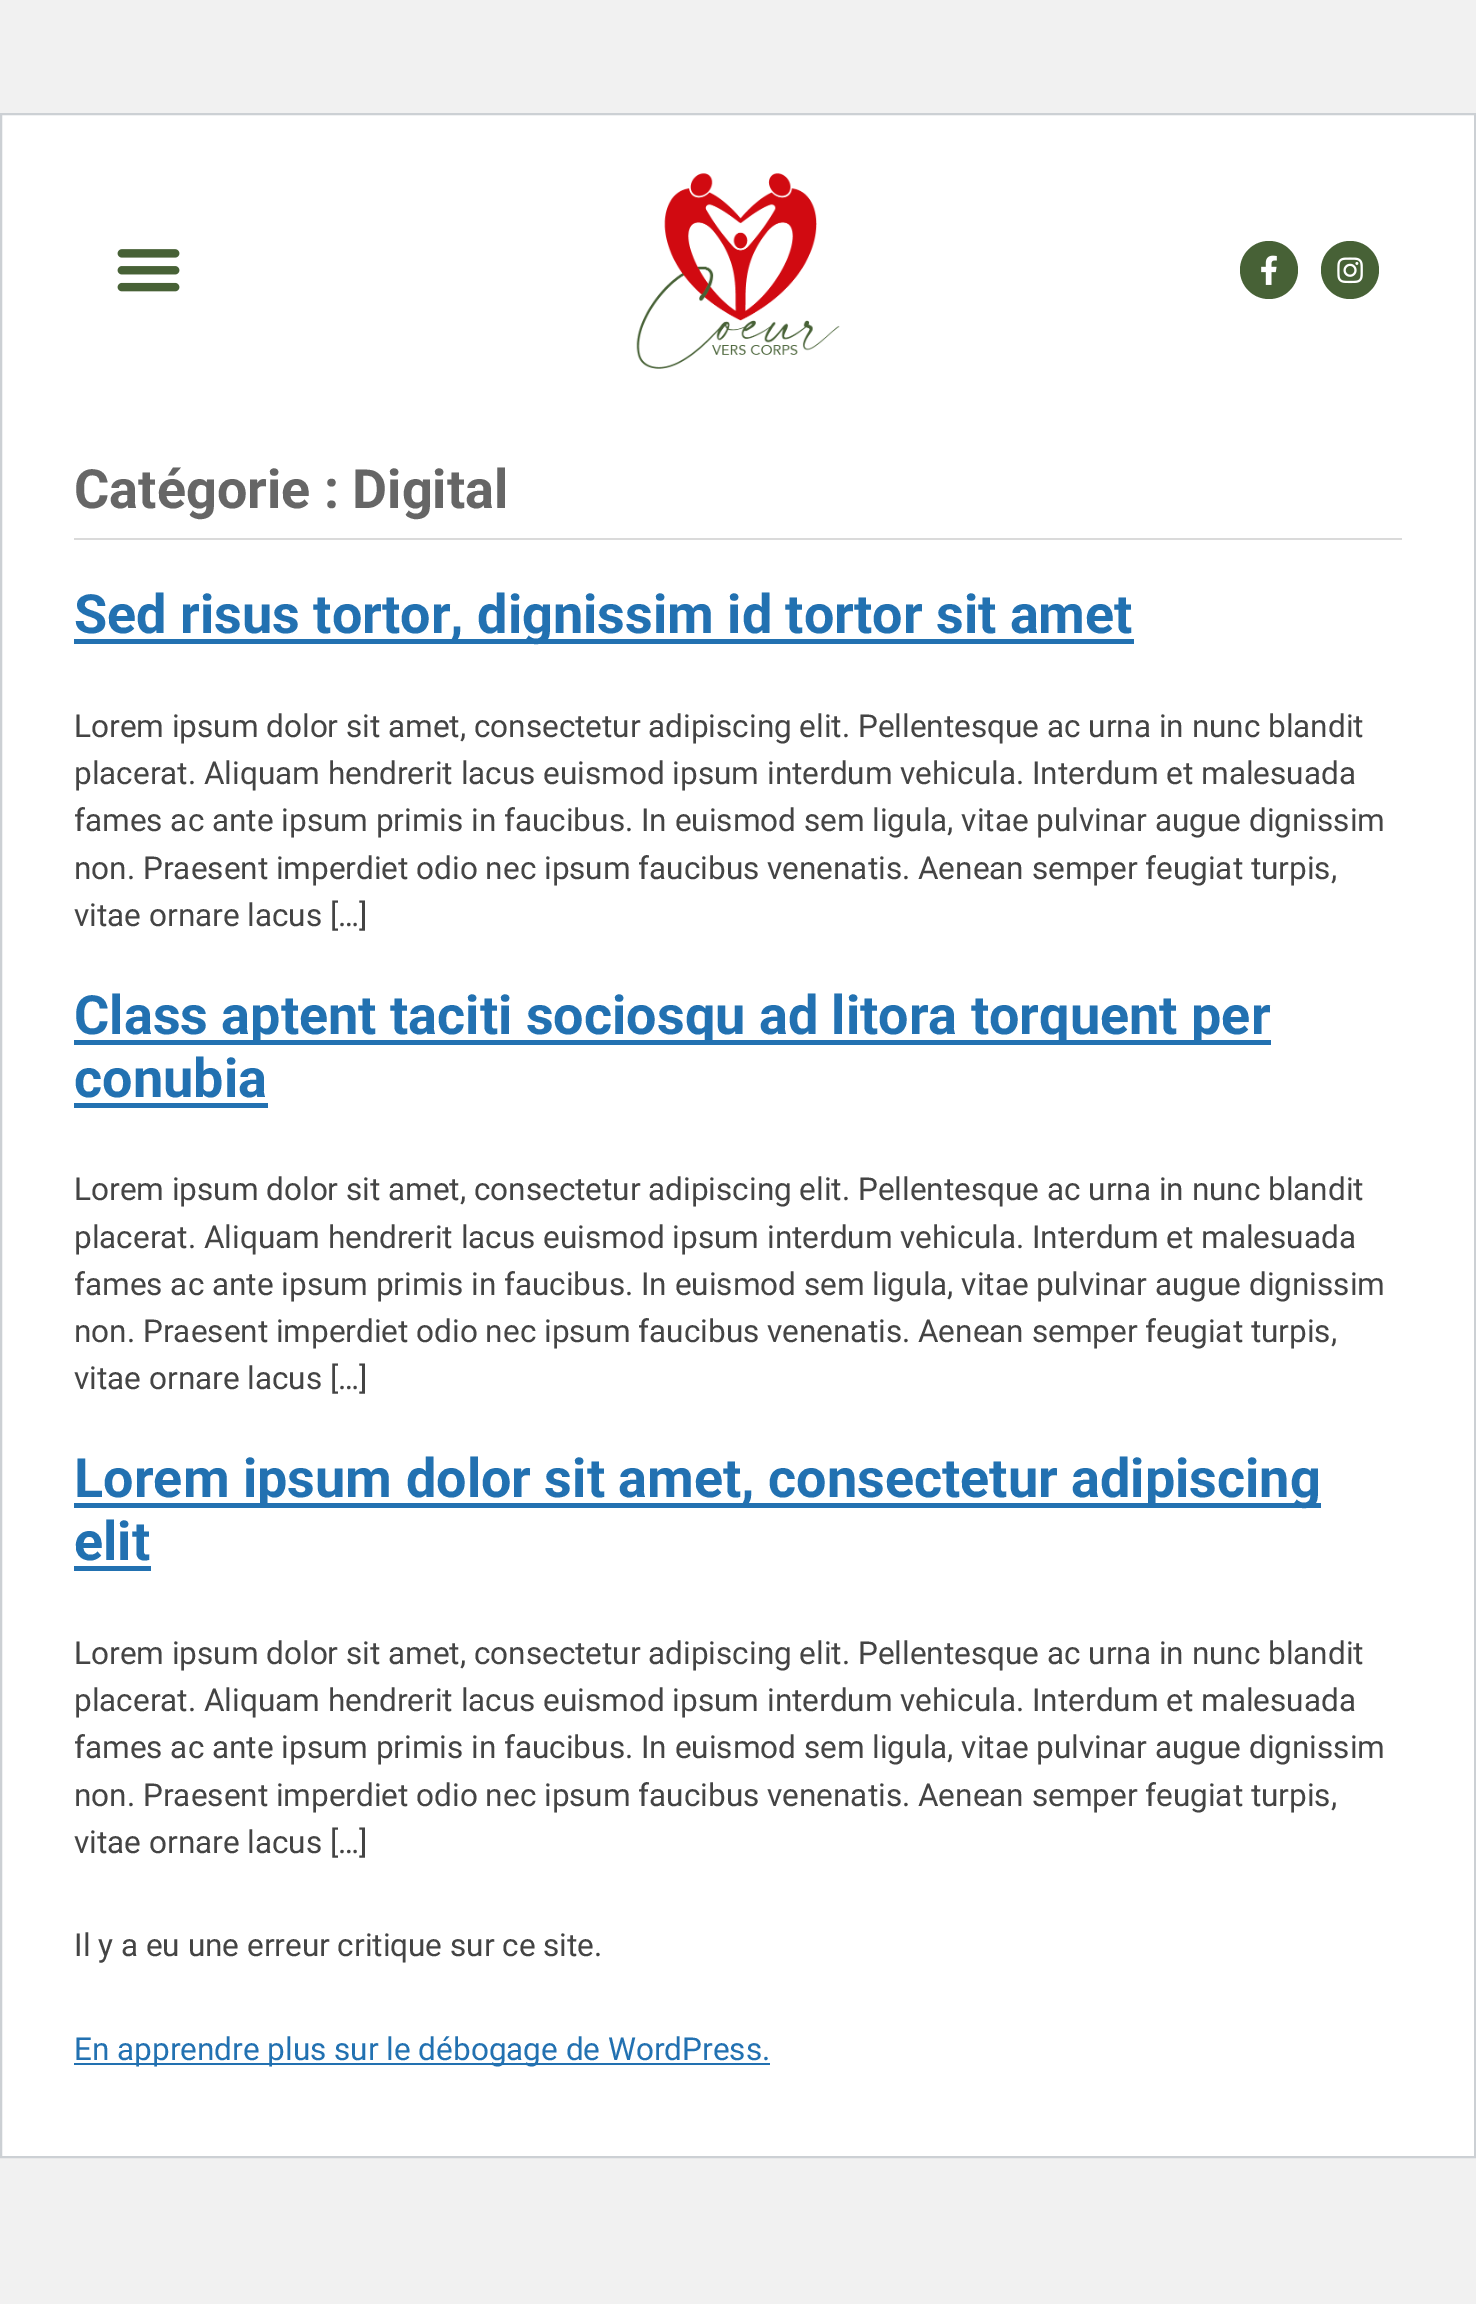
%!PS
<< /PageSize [1476 2304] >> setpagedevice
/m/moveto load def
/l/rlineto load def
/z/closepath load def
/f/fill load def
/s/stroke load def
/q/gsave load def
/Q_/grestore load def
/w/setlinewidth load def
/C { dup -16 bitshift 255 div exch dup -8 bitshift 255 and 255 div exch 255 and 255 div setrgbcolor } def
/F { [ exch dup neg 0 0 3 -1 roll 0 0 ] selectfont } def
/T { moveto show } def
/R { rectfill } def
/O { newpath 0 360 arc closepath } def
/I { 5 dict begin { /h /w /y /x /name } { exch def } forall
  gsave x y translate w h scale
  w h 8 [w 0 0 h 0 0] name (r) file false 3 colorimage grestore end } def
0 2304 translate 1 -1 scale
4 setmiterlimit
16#F1F1F1 C
0 0 1476 2304 R
16#FFFFFF C
1 114 m 1474 0 l 0 2043 l -1474 0 l z q f Q_
16#CCD0D4 C
2 w
s
(1.rgb) 117 249 63 43 I
(2.rgb) 636 173 204 196 I
16#476136 C
1269 270 29 O f
(3.rgb) 1261 255 16 30 I
1350 270 29 O f
(4.rgb) 1337 257 26 27 I
16#DADADA C
74 538 1328 2 R
/Roboto-Bold 54 F
16#666666 C
(Catégorie : Digital) 74 508 T
16#2271B1 C
74 639 1060 5 R
(Sed risus tortor, dignissim id tortor sit amet) 74 633 T
/Roboto-Regular 31.5 F
16#444444 C
(Lorem ipsum dolor sit amet, consectetur adipiscing elit. Pellentesque ac urna in nunc blandit) 74 737 T
(placerat. Aliquam hendrerit lacus euismod ipsum interdum vehicula. Interdum et malesuada) 74 784 T
(fames ac ante ipsum primis in faucibus. In euismod sem ligula, vitae pulvinar augue dignissim) 74 831 T
(non. Praesent imperdiet odio nec ipsum faucibus venenatis. Aenean semper feugiat turpis,) 74 879 T
(vitae ornare lacus […]) 74 926 T
16#2271B1 C
74 1040 1197 5 R
/Roboto-Bold 54 F
(Class aptent taciti sociosqu ad litora torquent per) 74 1034 T
(conubia) 74 1097 T
74 1103 194 5 R
/Roboto-Regular 31.5 F
16#444444 C
(Lorem ipsum dolor sit amet, consectetur adipiscing elit. Pellentesque ac urna in nunc blandit) 74 1200 T
(placerat. Aliquam hendrerit lacus euismod ipsum interdum vehicula. Interdum et malesuada) 74 1248 T
(fames ac ante ipsum primis in faucibus. In euismod sem ligula, vitae pulvinar augue dignissim) 74 1295 T
(non. Praesent imperdiet odio nec ipsum faucibus venenatis. Aenean semper feugiat turpis,) 74 1342 T
(vitae ornare lacus […]) 74 1389 T
16#2271B1 C
74 1503 1247 5 R
/Roboto-Bold 54 F
(Lorem ipsum dolor sit amet, consectetur adipiscing) 74 1497 T
(elit) 74 1560 T
74 1566 77 5 R
/Roboto-Regular 31.5 F
16#444444 C
(Lorem ipsum dolor sit amet, consectetur adipiscing elit. Pellentesque ac urna in nunc blandit) 74 1664 T
(placerat. Aliquam hendrerit lacus euismod ipsum interdum vehicula. Interdum et malesuada) 74 1711 T
(fames ac ante ipsum primis in faucibus. In euismod sem ligula, vitae pulvinar augue dignissim) 74 1758 T
(non. Praesent imperdiet odio nec ipsum faucibus venenatis. Aenean semper feugiat turpis,) 74 1806 T
(vitae ornare lacus […]) 74 1853 T
(Il y a eu une erreur critique sur ce site.) 74 1956 T
16#2271B1 C
74 2063 696 2 R
(En apprendre plus sur le débogage de WordPress.) 74 2060 T
showpage
